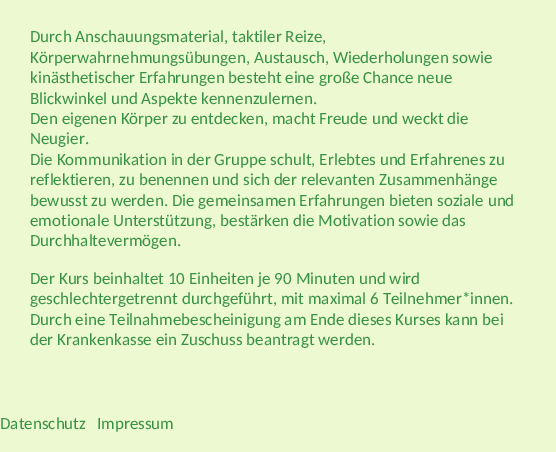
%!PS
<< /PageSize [556 452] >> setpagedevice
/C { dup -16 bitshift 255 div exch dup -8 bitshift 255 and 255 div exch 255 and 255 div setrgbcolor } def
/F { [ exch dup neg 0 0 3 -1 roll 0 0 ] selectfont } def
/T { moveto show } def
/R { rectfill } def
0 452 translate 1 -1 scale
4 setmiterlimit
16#EDF9D0 C
0 0 556 452 R
/Carlito-Regular 17 F
16#389244 C
(Durch Anschauungsmaterial, taktiler Reize,) 30 42 T
(Körperwahrnehmungsübungen, Austausch, Wiederholungen sowie) 30 63 T
(kinästhetischer Erfahrungen besteht eine große Chance neue) 30 83 T
(Blickwinkel und Aspekte kennenzulernen.) 30 104 T
(Den eigenen Körper zu entdecken, macht Freude und weckt die) 30 124 T
(Neugier.) 30 144 T
(Die Kommunikation in der Gruppe schult, Erlebtes und Erfahrenes zu) 30 165 T
(reflektieren, zu benennen und sich der relevanten Zusammenhänge) 30 185 T
(bewusst zu werden. Die gemeinsamen Erfahrungen bieten soziale und) 30 206 T
(emotionale Unterstützung, bestärken die Motivation sowie das) 30 226 T
(Durchhaltevermögen.) 30 246 T
(Der Kurs beinhaltet 10 Einheiten je 90 Minuten und wird) 30 284 T
(geschlechtergetrennt durchgeführt, mit maximal 6 Teilnehmer*innen.) 30 304 T
(Durch eine Teilnahmebescheinigung am Ende dieses Kurses kann bei) 30 325 T
(der Krankenkasse ein Zuschuss beantragt werden.) 30 345 T
(Datenschutz) 0 429 T
(Impressum) 97 429 T
showpage
